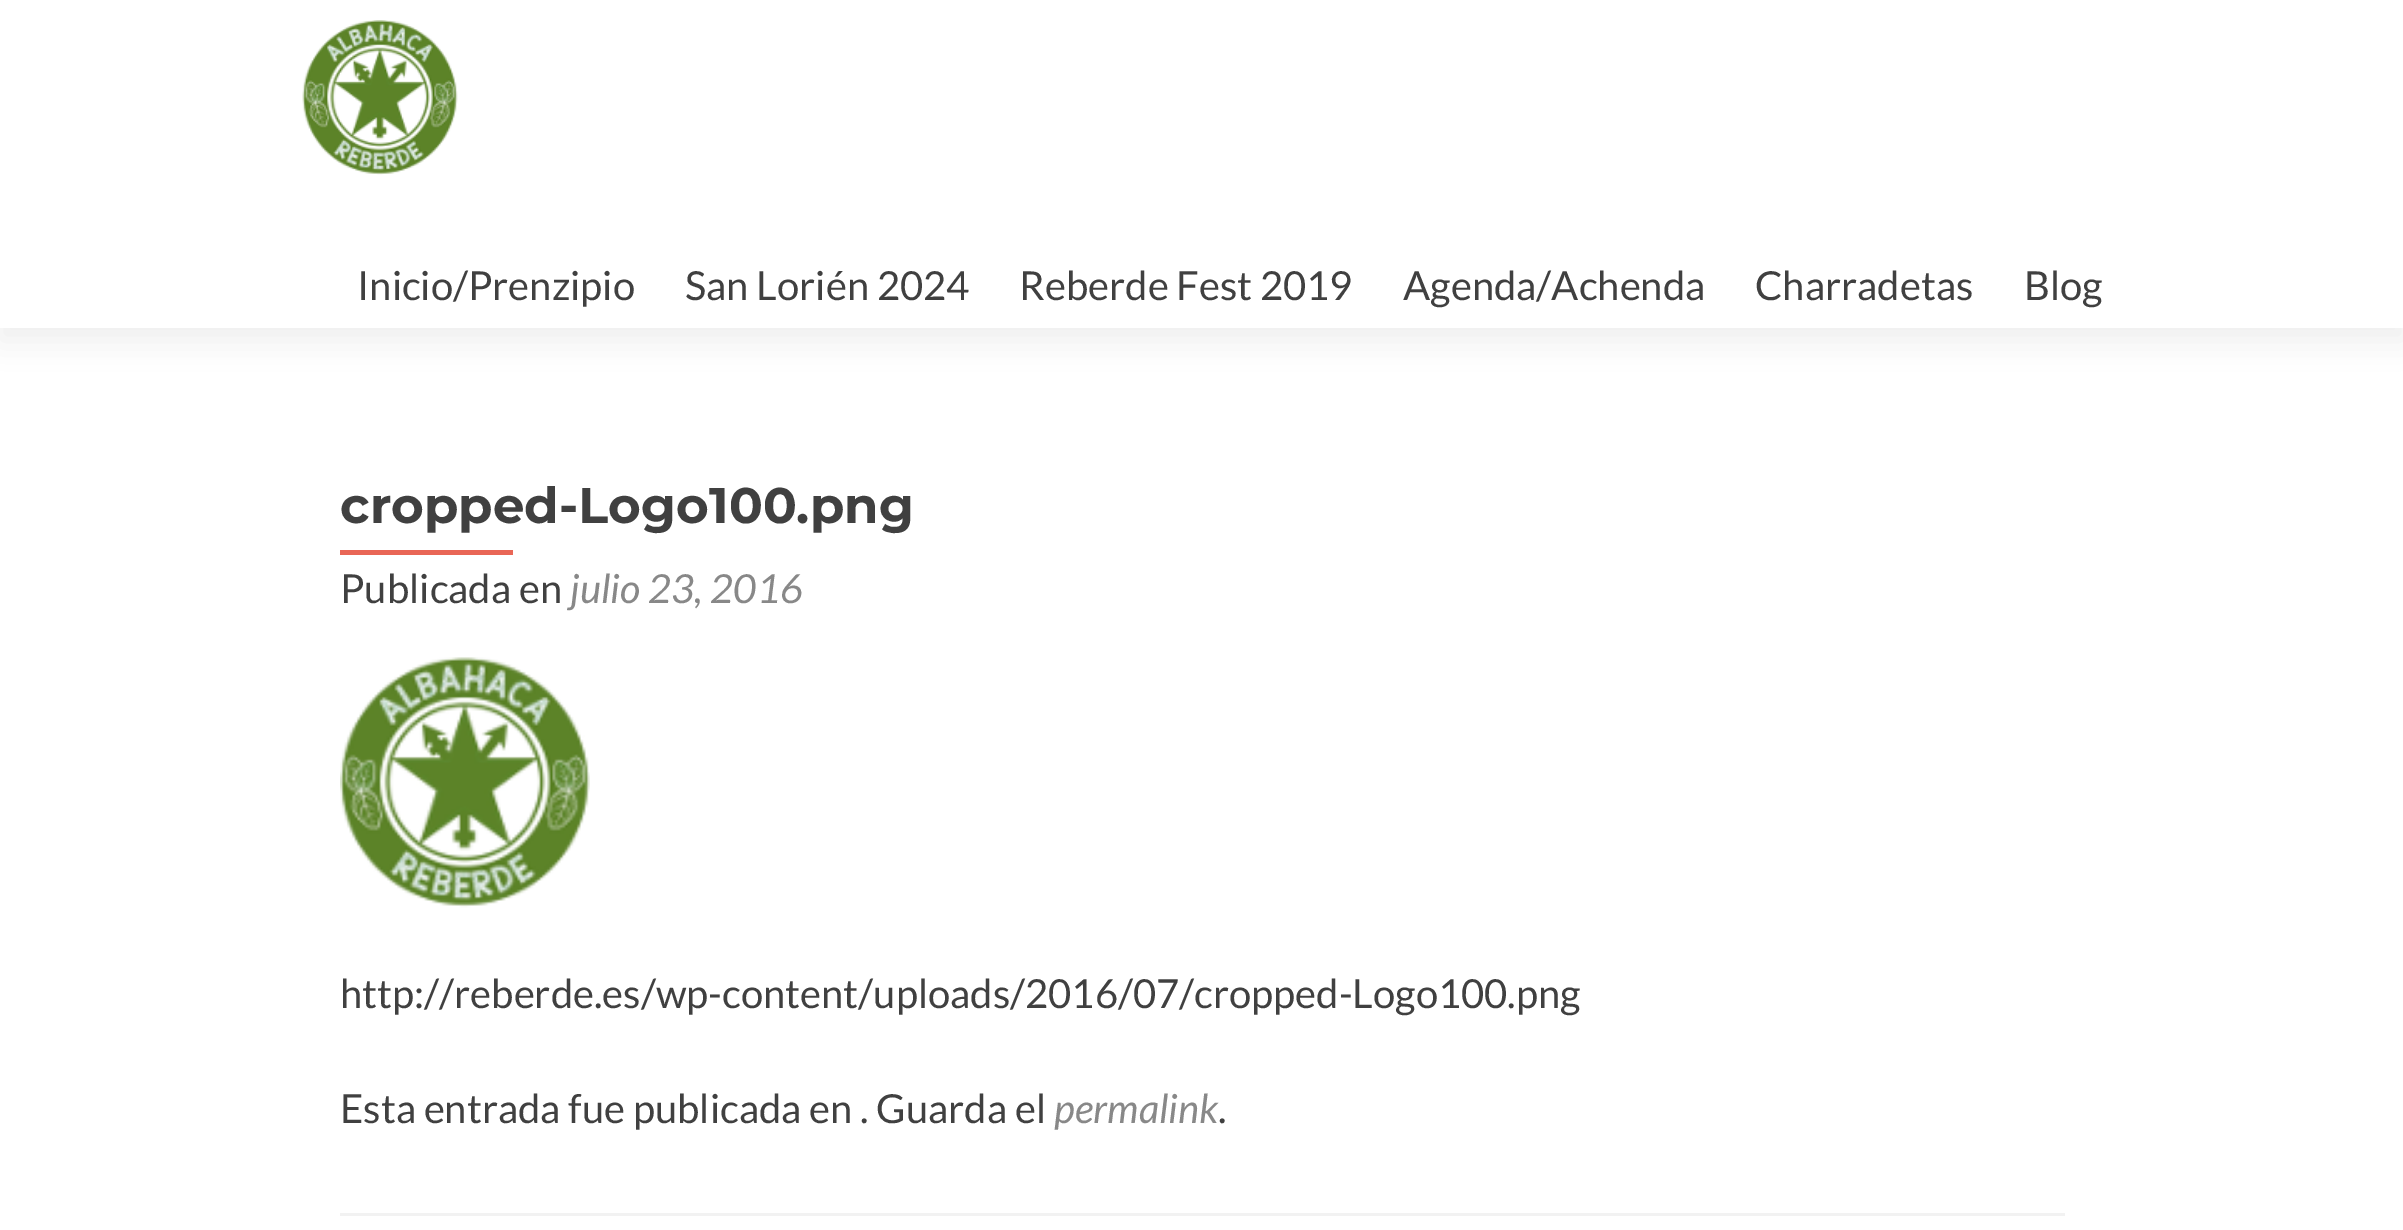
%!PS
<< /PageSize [2403 1230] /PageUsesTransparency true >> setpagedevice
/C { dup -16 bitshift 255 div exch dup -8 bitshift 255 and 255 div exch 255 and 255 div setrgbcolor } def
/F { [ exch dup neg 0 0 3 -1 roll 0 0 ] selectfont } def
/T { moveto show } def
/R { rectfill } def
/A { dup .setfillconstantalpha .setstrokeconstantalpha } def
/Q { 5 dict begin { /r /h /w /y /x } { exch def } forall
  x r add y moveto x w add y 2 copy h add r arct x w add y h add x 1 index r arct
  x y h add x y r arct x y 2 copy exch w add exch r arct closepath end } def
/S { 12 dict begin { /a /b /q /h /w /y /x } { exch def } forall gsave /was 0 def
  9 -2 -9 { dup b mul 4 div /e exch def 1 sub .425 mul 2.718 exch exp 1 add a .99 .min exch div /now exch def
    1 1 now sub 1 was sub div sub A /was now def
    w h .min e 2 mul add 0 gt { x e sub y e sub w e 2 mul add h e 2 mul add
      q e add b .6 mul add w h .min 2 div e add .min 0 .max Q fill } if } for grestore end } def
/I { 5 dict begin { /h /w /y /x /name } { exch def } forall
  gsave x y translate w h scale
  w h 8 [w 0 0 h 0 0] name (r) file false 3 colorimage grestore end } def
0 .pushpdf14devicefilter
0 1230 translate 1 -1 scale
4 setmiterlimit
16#FFFFFF C
0 0 2403 1230 R
16#323232 C
0 13 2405 327 0 14 .08 S
16#FFFFFF C
0 0 2403 328 R
(1.rgb) 302 20 156 155 I
/Lato-Regular 40 F
16#404040 C
(Inicio/Prenzipio) 357 300 T
(San Lorién 2024) 685 300 T
(Reberde Fest 2019) 1019 300 T
(Agenda/Achenda) 1403 300 T
(Charradetas) 1755 300 T
(Blog) 2024 300 T
16#F2F2F2 C
340 1213 1725 3 R
/Montserrat-Bold 50 F
16#404040 C
(cropped-Logo100.png) 340 523 T
16#E96656 C
340 550 173 5 R
/Lato-Regular 40 F
16#404040 C
(Publicada en) 340 603 T
/Lato-Italic 40 F
16#888888 C
(julio 23, 2016) 570 603 T
(2.rgb) 340 657 250 251 I
/Lato-Regular 40 F
16#404040 C
(http://reberde.es/wp-content/uploads/2016/07/cropped-Logo100.png) 340 1008 T
(Esta entrada fue publicada en . Guarda el) 340 1123 T
/Lato-Italic 40 F
16#888888 C
(permalink) 1054 1123 T
/Lato-Regular 40 F
16#404040 C
(.) 1218 1123 T
.poppdf14devicefilter showpage
